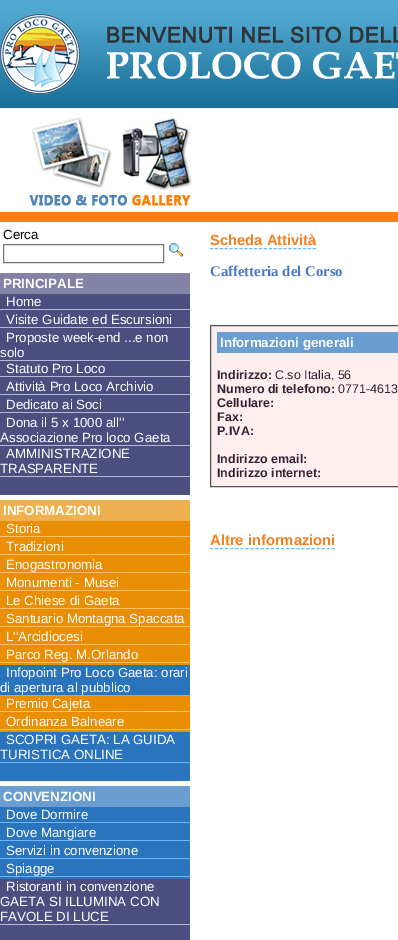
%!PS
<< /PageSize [398 940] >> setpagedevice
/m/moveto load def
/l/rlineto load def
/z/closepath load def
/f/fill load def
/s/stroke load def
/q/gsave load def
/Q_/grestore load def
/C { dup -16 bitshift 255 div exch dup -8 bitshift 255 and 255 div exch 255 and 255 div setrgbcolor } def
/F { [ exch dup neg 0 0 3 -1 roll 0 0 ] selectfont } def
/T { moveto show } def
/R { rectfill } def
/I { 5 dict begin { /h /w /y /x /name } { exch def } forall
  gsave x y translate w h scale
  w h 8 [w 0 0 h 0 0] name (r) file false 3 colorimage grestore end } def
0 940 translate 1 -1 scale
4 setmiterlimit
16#FFFFFF C
0 0 398 940 R
16#27A4DE C
0 0 398 108 R
(1.rgb) 0 0 398 108 I
(2.rgb) 0 14 80 80 I
(3.rgb) 107 26 291 53 I
(4.rgb) 29 117 163 90 I
16#F47E20 C
0 212 398 10 R
/LiberationSans-Regular 13.3 F
16#000000 C
(Cerca) 3 239 T
16#767676 C
3.5 244.5 160 18 rectstroke
(5.rgb) 168 242 16 16 I
16#8383A5 C
0 273 190 21 R
/LiberationSans-Bold 13.3 F
16#FFFFFF C
(PRINCIPALE) 3 288 T
16#4D4E80 C
0 294 190 66 R
16#B7B8D5 C
0 309 190 1 R
/LiberationSans-Regular 13.3 F
16#FFFFFF C
(Home) 6 306 T
16#B7B8D5 C
0 327 190 1 R
16#FFFFFF C
(Visite Guidate ed Escursioni) 6 324 T
16#B7B8D5 C
0 360 190 1 R
16#FFFFFF C
(Proposte week-end ...e non) 6 342 T
(solo) 0 357 T
16#4D4E80 C
0 361 190 84 R
16#B7B8D5 C
0 376 190 1 R
16#FFFFFF C
(Statuto Pro Loco) 6 373 T
16#B7B8D5 C
0 394 190 1 R
16#FFFFFF C
(Attività Pro Loco Archivio) 6 391 T
16#B7B8D5 C
0 412 190 1 R
16#FFFFFF C
(Dedicato ai Soci) 6 409 T
16#B7B8D5 C
0 445 190 1 R
16#FFFFFF C
(Dona il 5 x 1000 all'') 6 427 T
(Associazione Pro loco Gaeta) 0 442 T
16#4D4E80 C
0 446 190 30 R
16#B7B8D5 C
0 476 190 1 R
16#FFFFFF C
(AMMINISTRAZIONE) 6 458 T
(TRASPARENTE) 0 473 T
16#4D4E80 C
0 477 190 18 R
16#EFB04F C
0 500 190 21 R
/LiberationSans-Bold 13.3 F
16#FFFFFF C
(INFORMAZIONI) 3 515 T
16#EA8E04 C
0 521 190 144 R
16#FFC166 C
0 536 190 1 R
/LiberationSans-Regular 13.3 F
16#FFFFFF C
(Storia) 6 533 T
16#FFC166 C
0 554 190 1 R
16#FFFFFF C
(Tradizioni) 6 551 T
16#FFC166 C
0 572 190 1 R
16#FFFFFF C
(Enogastronomia) 6 569 T
16#FFC166 C
0 590 190 1 R
16#FFFFFF C
(Monumenti - Musei) 6 587 T
16#FFC166 C
0 608 190 1 R
16#FFFFFF C
(Le Chiese di Gaeta) 6 605 T
16#FFC166 C
0 626 190 1 R
16#FFFFFF C
(Santuario Montagna Spaccata) 6 623 T
16#FFC166 C
0 644 190 1 R
16#FFFFFF C
(L''Arcidiocesi) 6 641 T
16#FFC166 C
0 662 190 1 R
16#FFFFFF C
(Parco Reg. M.Orlando) 6 659 T
16#2A74BD C
0 665 190 30 R
16#6BB6FF C
0 695 190 1 R
16#FFFFFF C
(Infopoint Pro Loco Gaeta: orari) 6 677 T
(di apertura al pubblico) 0 692 T
16#EA8E04 C
0 696 190 36 R
16#FFC166 C
0 711 190 1 R
16#FFFFFF C
(Premio Cajeta) 6 708 T
16#FFC166 C
0 729 190 1 R
16#FFFFFF C
(Ordinanza Balneare) 6 726 T
16#2A74BD C
0 732 190 30 R
16#6BB6FF C
0 762 190 1 R
16#FFFFFF C
(SCOPRI GAETA: LA GUIDA) 6 744 T
(TURISTICA ONLINE) 0 759 T
16#2A74BD C
0 763 190 18 R
16#6A9ED0 C
0 786 190 21 R
/LiberationSans-Bold 13.3 F
16#FFFFFF C
(CONVENZIONI) 3 801 T
16#2A74BD C
0 807 190 72 R
16#6BB6FF C
0 822 190 1 R
/LiberationSans-Regular 13.3 F
16#FFFFFF C
(Dove Dormire) 6 819 T
16#6BB6FF C
0 840 190 1 R
16#FFFFFF C
(Dove Mangiare) 6 837 T
16#6BB6FF C
0 858 190 1 R
16#FFFFFF C
(Servizi in convenzione) 6 855 T
16#6BB6FF C
0 876 190 1 R
16#FFFFFF C
(Spiagge) 6 873 T
16#4D4E80 C
0 879 190 45 R
16#B7B8D5 C
0 924 190 1 R
16#FFFFFF C
(Ristoranti in convenzione) 6 891 T
(GAETA SI ILLUMINA CON) 0 906 T
(FAVOLE DI LUCE) 0 921 T
16#4D4E80 C
0 925 190 15 R
/LiberationSans-Bold 14.75 F
16#F47E20 C
(Scheda Attività) 210 245 T
16#6BB6FF C
[3 1.9] 0 setdash
210 248.5 m 106 0 l s
/LiberationSerif-Bold 14.75 F
16#4676C7 C
(Caffetteria del Corso) 210 276 T
16#FEEFEF C
210.5 325.5 m 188 0 l 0 161 l -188 0 l z q f Q_
16#555555 C
[] 0 setdash
s
16#6A9ED0 C
217 332 181 21 R
/LiberationSans-Bold 13.3 F
16#FFFFFF C
(Informazioni generali) 220 347 T
/LiberationSans-Bold 12.5 F
16#332233 C
(Indirizzo:) 217 379 T
/LiberationSans-Regular 12.5 F
(C.so Italia, 56) 275 379 T
/LiberationSans-Bold 12.5 F
(Numero di telefono:) 217 393 T
/LiberationSans-Regular 12.5 F
(0771-4613) 338 393 T
/LiberationSans-Bold 12.5 F
(Cellulare:) 217 407 T
(Fax:) 217 421 T
(P.IVA:) 217 435 T
(Indirizzo email:) 217 463 T
(Indirizzo internet:) 217 477 T
/LiberationSans-Bold 14.75 F
16#F47E20 C
(Altre informazioni) 210 545 T
16#6BB6FF C
[3 2.08] 0 setdash
210 548.5 m 125 0 l s
showpage
